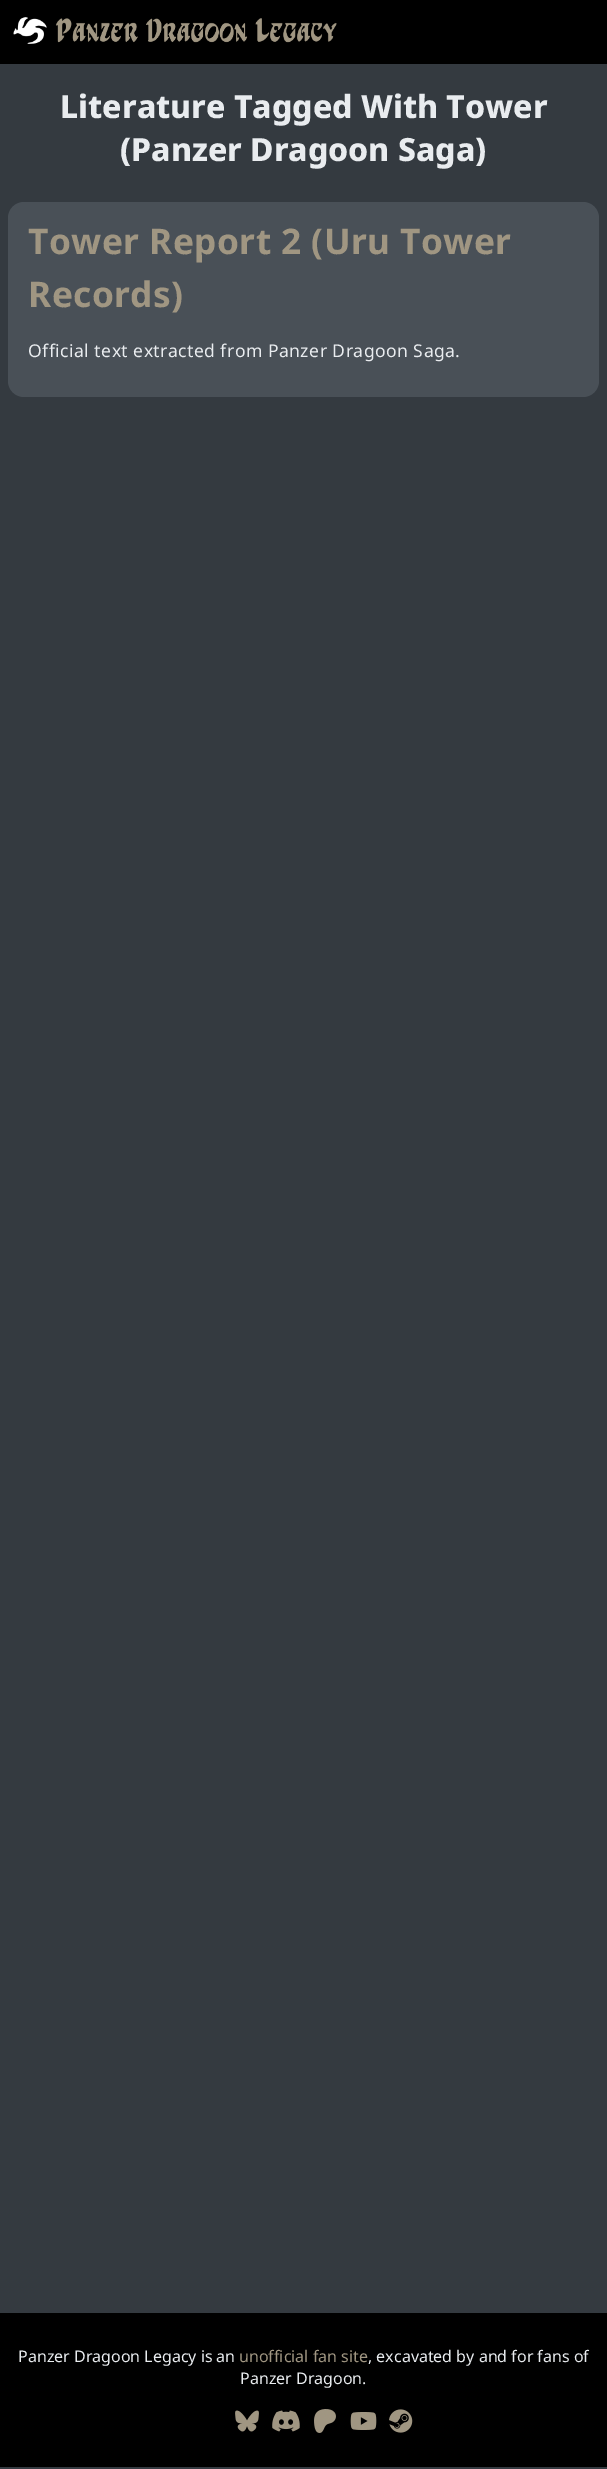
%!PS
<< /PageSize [607 2469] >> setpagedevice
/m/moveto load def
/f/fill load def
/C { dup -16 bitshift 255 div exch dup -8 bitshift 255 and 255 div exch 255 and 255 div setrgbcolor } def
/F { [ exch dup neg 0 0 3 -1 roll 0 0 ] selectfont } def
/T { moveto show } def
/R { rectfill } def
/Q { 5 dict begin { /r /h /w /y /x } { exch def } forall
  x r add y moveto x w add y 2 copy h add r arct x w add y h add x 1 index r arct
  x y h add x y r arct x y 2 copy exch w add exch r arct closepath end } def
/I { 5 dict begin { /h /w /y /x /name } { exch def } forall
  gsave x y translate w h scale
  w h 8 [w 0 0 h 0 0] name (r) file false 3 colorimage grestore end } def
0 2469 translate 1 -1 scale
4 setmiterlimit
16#343A40 C
0 0 607 2469 R
16#000000 C
0 0 607 64 R
(1.rgb) 13 17 324 27 I
/NotoSans-ExtraBold 32 F
16#E9ECEF C
(Literature Tagged With Tower) 60 118 T
(\(Panzer Dragoon Saga\)) 120 161 T
16#495057 C
8 202 591 195 16 Q f
/NotoSans-Bold 35.25 F
16#A09682 C
28 254 m .45 0 (Tower Report 2 \(Uru Tower) ashow
28 307 m .45 0 (Records\)) ashow
/NotoSans-Regular 17.6 F
16#E9ECEF C
28 357 m .45 0 (Official text extracted from Panzer Dragoon Saga.) ashow
16#000000 C
0 2313 607 154 R
/NotoSans-Regular 16 F
16#E9ECEF C
(Panzer Dragoon Legacy is an) 18 2362 T
16#A09682 C
(unofficial fan site) 239 2362 T
16#E9ECEF C
(, excavated by and for fans of) 368 2362 T
(Panzer Dragoon.) 240 2384 T
(2.rgb) 235 2410 24 22 I
(3.rgb) 272 2410 28 22 I
(4.rgb) 314 2409 22 24 I
(5.rgb) 350 2412 27 18 I
(6.rgb) 389 2409 24 24 I
showpage
